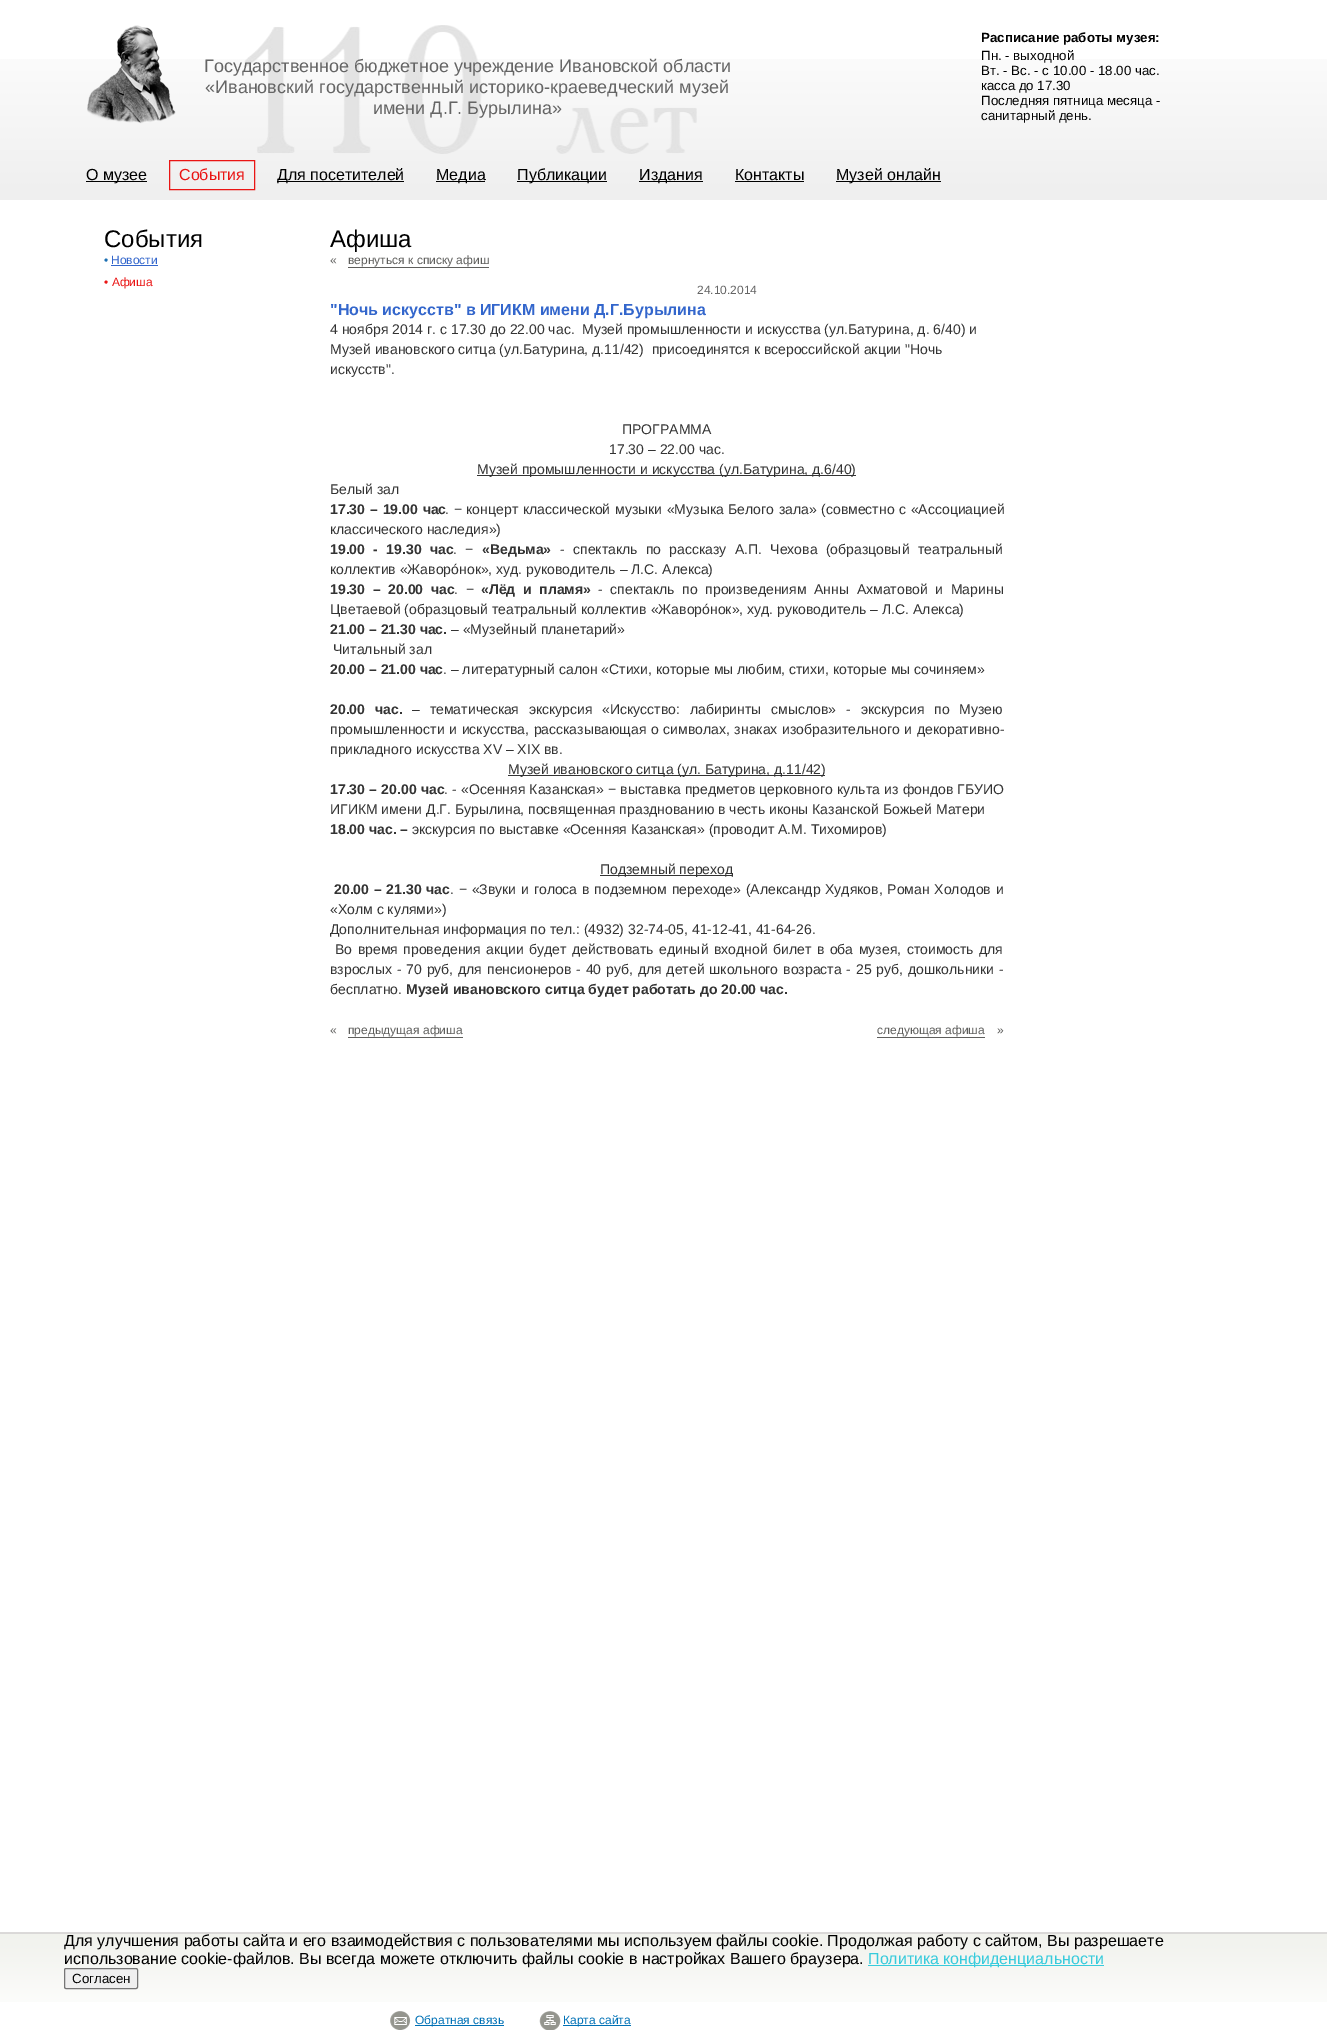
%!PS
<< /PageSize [1327 2030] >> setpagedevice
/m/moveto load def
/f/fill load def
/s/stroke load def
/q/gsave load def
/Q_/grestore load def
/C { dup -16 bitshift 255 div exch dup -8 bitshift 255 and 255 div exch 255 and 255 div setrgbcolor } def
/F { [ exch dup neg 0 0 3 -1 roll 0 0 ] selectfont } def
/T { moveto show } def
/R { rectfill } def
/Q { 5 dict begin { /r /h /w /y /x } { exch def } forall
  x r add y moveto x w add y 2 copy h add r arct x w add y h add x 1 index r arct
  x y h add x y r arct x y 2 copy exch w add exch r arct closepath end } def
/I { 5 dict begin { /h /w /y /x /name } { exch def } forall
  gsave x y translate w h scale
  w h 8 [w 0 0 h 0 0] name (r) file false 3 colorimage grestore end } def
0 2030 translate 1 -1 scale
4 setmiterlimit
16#FFFFFF C
0 0 1327 2030 R
(1.rgb) 0 59 1327 141 I
(2.rgb) 244 25 453 129 I
(3.rgb) 87 25 89 99 I
/LiberationSans-Regular 18 F
16#656565 C
(Государственное бюджетное учреждение Ивановской области) 204 72 T
(«Ивановский государственный историко-краеведческий музей) 205 93 T
(имени Д.Г. Бурылина») 373 114 T
/LiberationSans-Bold 13.3 F
16#000000 C
(Расписание работы музея:) 981 42 T
/LiberationSans-Regular 13.3 F
(Пн. - выходной) 981 60 T
(Вт. - Вс. - с 10.00 - 18.00 час.) 981 75 T
(касса до 17.30) 981 90 T
(Последняя пятница месяца -) 981 105 T
(санитарный день.) 981 120 T
86 181 61 1 R
/LiberationSans-Regular 16 F
(О музее) 86 180 T
16#EA1514 C
169.5 160.5 85 29 rectstroke
(События) 179 180 T
16#000000 C
277 181 127 1 R
(Для посетителей) 277 180 T
436 181 49 1 R
(Медиа) 436 180 T
517 181 90 1 R
(Публикации) 517 180 T
639 181 64 1 R
(Издания) 639 180 T
(Контакты) 735 180 T
735 181 69 1 R
836 181 105 1 R
(Музей онлайн) 836 180 T
/LiberationSans-Regular 24 F
(События) 104 247 T
/LiberationSans-Regular 12 F
16#1C70B3 C
(•) 104 264 T
16#3366CC C
(Новости) 111 264 T
111 265 47 1 R
16#EA1514 C
(• Афиша) 104 286 T
/LiberationSans-Regular 24 F
16#000000 C
(Афиша) 330 247 T
/LiberationSans-Regular 12 F
16#5E5E5C C
(«) 330 264 T
(вернуться к списку афиш) 348 264 T
348 267 141 1 R
16#656565 C
(24.10.2014) 697 294 T
/LiberationSans-Bold 16 F
16#3366CC C
("Ночь искусств" в ИГИКМ имени Д.Г.Бурылина) 330 315 T
/LiberationSans-Regular 14 F
16#333333 C
(4 ноября 2014 г. с 17.30 до 22.00 час.  Музей промышленности и искусства \(ул.Батурина, д. 6/40\) и) 330 334 T
(Музей ивановского ситца \(ул.Батурина, д.11/42\)  присоединятся к всероссийской акции "Ночь) 330 354 T
(искусств".) 330 374 T
(ПРОГРАММА) 622 434 T
(17.30 – 22.00 час.) 609 454 T
477 475 379 1 R
(Музей промышленности и искусства \(ул.Батурина, д.6/40\)) 477 474 T
(Белый зал) 330 494 T
/LiberationSans-Bold 14 F
330 514 m 1 0 32 (17.30 – 19.00 час) widthshow
/LiberationSans-Regular 14 F
445 514 m .75 0 32 (. − концерт классической музыки «Музыка Белого зала» \(совместно с «Ассоциацией) widthshow
(классического наследия»\)) 330 534 T
/LiberationSans-Bold 14 F
330 554 m 4.5 0 32 (19.00 - 19.30 час) widthshow
/LiberationSans-Regular 14 F
453 554 m 4.5 0 32 (. −) widthshow
/LiberationSans-Bold 14 F
(«Ведьма») 482 554 T
/LiberationSans-Regular 14 F
560 554 m 4.5 0 32 (- спектакль по рассказу А.П. Чехова \(образцовый театральный) widthshow
(коллектив «Жаворóнок», худ. руководитель – Л.С. Алекса\)) 330 574 T
/LiberationSans-Bold 14 F
330 594 m 3.75 0 32 (19.30 – 20.00 час) widthshow
/LiberationSans-Regular 14 F
454 594 m 3.75 0 32 (. −) widthshow
/LiberationSans-Bold 14 F
481 594 m 3.75 0 32 («Лёд и пламя») widthshow
/LiberationSans-Regular 14 F
598 594 m 3.75 0 32 (- спектакль по произведениям Анны Ахматовой и Марины) widthshow
(Цветаевой \(образцовый театральный коллектив «Жаворóнок», худ. руководитель – Л.С. Алекса\)) 330 614 T
/LiberationSans-Bold 14 F
(21.00 – 21.30 час.) 330 634 T
/LiberationSans-Regular 14 F
(– «Музейный планетарий») 451 634 T
(Читальный зал) 333 654 T
/LiberationSans-Bold 14 F
(20.00 – 21.00 час) 330 674 T
/LiberationSans-Regular 14 F
(. – литературный салон «Стихи, которые мы любим, стихи, которые мы сочиняем») 443 674 T
/LiberationSans-Bold 14 F
330 714 m 6 0 32 (20.00 час.) widthshow
/LiberationSans-Regular 14 F
412 714 m 6 0 32 (– тематическая экскурсия «Искусство: лабиринты смыслов» - экскурсия по Музею) widthshow
330 734 m .75 0 32 (промышленности и искусства, рассказывающая о символах, знаках изобразительного и декоративно-) widthshow
(прикладного искусства XV – XIX вв.) 330 754 T
508 775 317 1 R
(Музей ивановского ситца \(ул. Батурина, д.11/42\)) 508 774 T
/LiberationSans-Bold 14 F
330 794 m .4 0 32 (17.30 – 20.00 час) widthshow
/LiberationSans-Regular 14 F
444 794 m .4 0 32 (. - «Осенняя Казанская» − выставка предметов церковного культа из фондов ГБУИО) widthshow
(ИГИКМ имени Д.Г. Бурылина, посвященная празднованию в честь иконы Казанской Божьей Матери) 330 814 T
/LiberationSans-Bold 14 F
(18.00 час. –) 330 834 T
/LiberationSans-Regular 14 F
(экскурсия по выставке «Осенняя Казанская» \(проводит А.М. Тихомиров\)) 412 834 T
600 875 133 1 R
(Подземный переход) 600 874 T
/LiberationSans-Bold 14 F
334 894 m .9 0 32 (20.00 – 21.30 час) widthshow
/LiberationSans-Regular 14 F
450 894 m .9 0 32 (. − «Звуки и голоса в подземном переходе» \(Александр Худяков, Роман Холодов и) widthshow
(«Холм с кулями»\)) 330 914 T
(Дополнительная информация по тел.: \(4932\) 32-74-05, 41-12-41, 41-64-26.) 330 934 T
335 954 m 1.6 0 32 (Во время проведения акции будет действовать единый входной билет в оба музея, стоимость для) widthshow
330 974 m 1 0 32 (взрослых - 70 руб, для пенсионеров - 40 руб, для детей школьного возраста - 25 руб, дошкольники -) widthshow
(бесплатно.) 330 994 T
/LiberationSans-Bold 14 F
(Музей ивановского ситца будет работать до 20.00 час.) 406 994 T
/LiberationSans-Regular 12 F
16#5E5E5C C
(«) 330 1034 T
(предыдущая афиша) 348 1034 T
348 1037 115 1 R
(следующая афиша) 877 1034 T
877 1037 108 1 R
(») 997 1034 T
(4.rgb) 0 1932 1327 70 I
/LiberationSans-Regular 16 F
16#000000 C
(Для улучшения работы сайта и его взаимодействия с пользователями мы используем файлы cookie. Продолжая работу с сайтом, Вы разрешаете) 64 1946 T
(использование cookie-файлов. Вы всегда можете отключить файлы cookie в настройках Вашего браузера.) 64 1964 T
16#37CBDC C
868 1965 236 1 R
(Политика конфиденциальности) 868 1964 T
16#EFEFEF C
64.5 1968.5 73 20 1.5 Q q f Q_
16#767676 C
s
/LiberationSans-Regular 13.3 F
16#000000 C
(Согласен) 72 1983 T
(5.rgb) 390 2011 21 19 I
16#0071B6 C
415 2025 89 1 R
/LiberationSans-Regular 12 F
(Обратная связь) 415 2024 T
(6.rgb) 539 2011 22 19 I
563 2025 68 1 R
(Карта сайта) 563 2024 T
showpage
